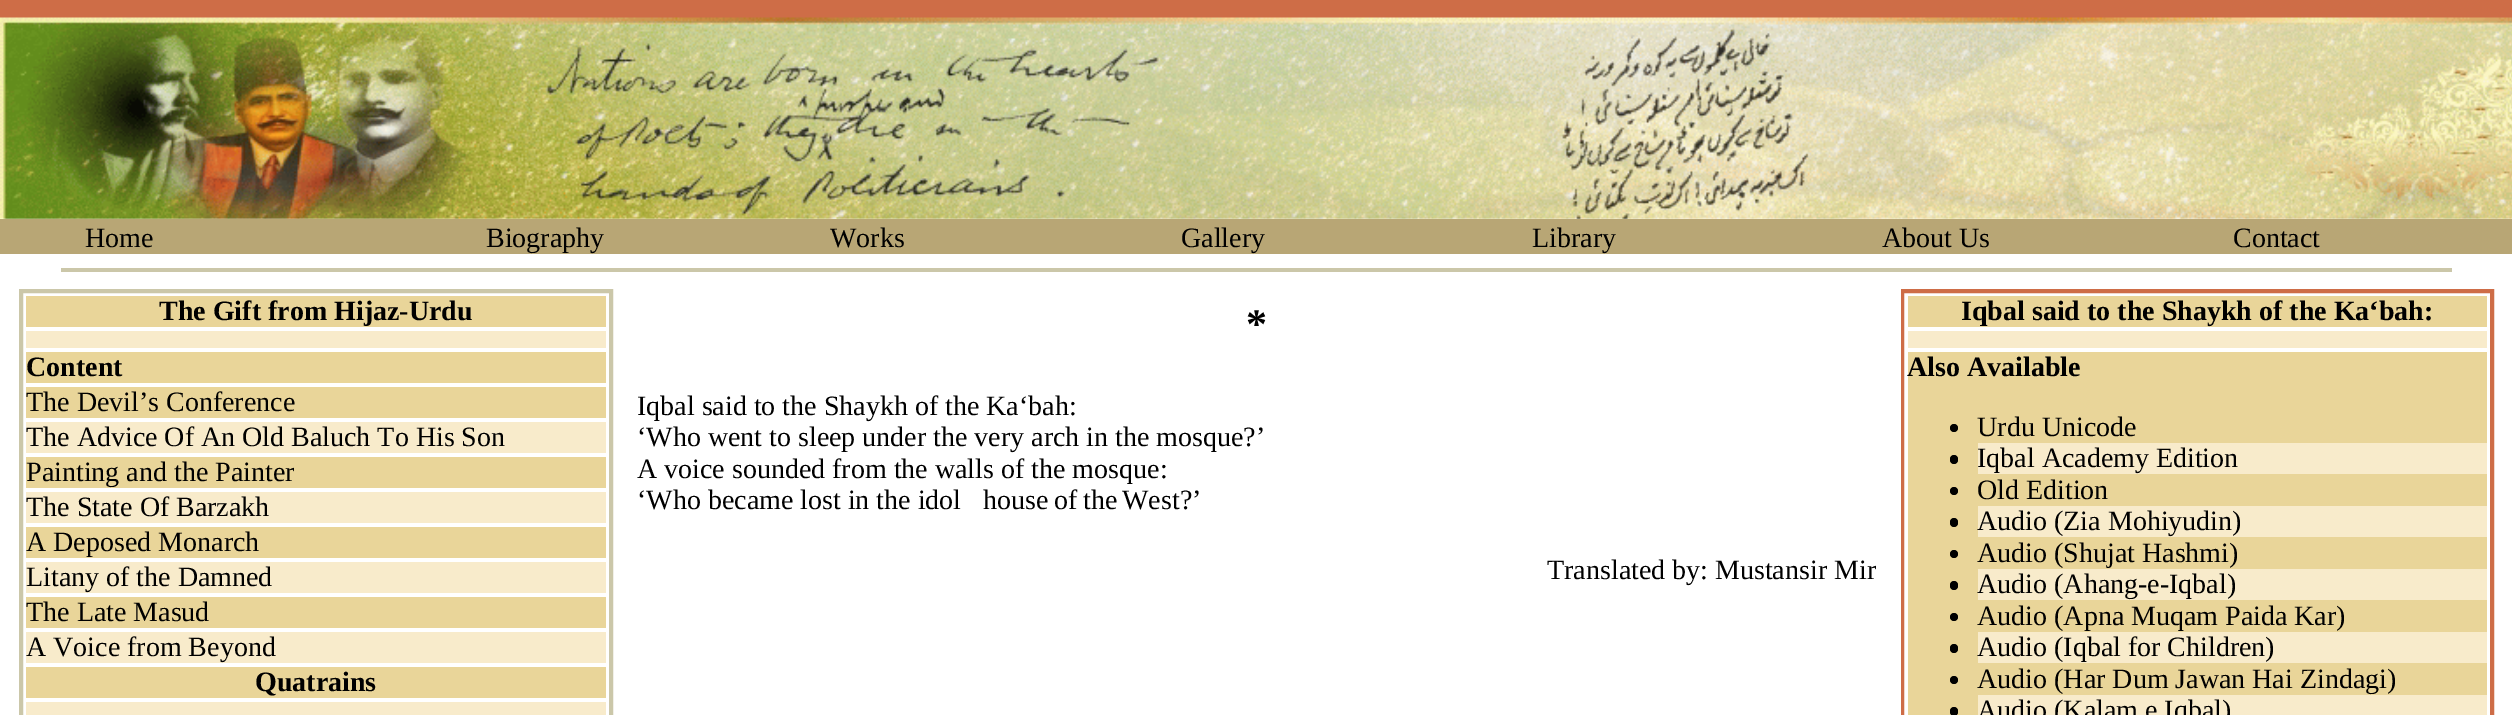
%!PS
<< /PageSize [2512 715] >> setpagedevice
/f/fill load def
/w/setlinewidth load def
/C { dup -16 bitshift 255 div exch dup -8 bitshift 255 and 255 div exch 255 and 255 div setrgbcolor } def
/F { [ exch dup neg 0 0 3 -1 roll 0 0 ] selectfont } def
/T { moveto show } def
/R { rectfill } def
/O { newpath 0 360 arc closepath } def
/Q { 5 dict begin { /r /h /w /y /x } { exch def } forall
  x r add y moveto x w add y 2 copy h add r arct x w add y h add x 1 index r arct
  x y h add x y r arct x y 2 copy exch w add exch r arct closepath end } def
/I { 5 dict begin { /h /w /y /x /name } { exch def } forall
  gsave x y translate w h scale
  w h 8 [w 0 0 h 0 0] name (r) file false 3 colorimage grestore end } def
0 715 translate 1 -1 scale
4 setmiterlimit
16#FFFFFF C
0 0 2512 715 R
16#CE6D47 C
0 0 2512 18 R
(1.rgb) 0 17 2512 202 I
16#B8A675 C
0 219 2512 35 R
/LiberationSerif-Regular 28 F
16#000000 C
(Home) 85 247 T
(Biography) 486 247 T
(Works) 830 247 T
(Gallery) 1181 247 T
(Library) 1532 247 T
(About Us) 1882 247 T
(Contact) 2233 247 T
16#CBC7A9 C
61 268 2391 4 R
2 w
20 290 592 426 rectstroke
22 292 588 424 rectstroke
16#E9D599 C
26 296 580 31 R
/LiberationSerif-Bold 28 F
16#000000 C
(The Gift from Hijaz-Urdu) 159 320 T
16#F8EBCB C
26 331 580 17 R
16#E9D599 C
26 352 580 31 R
16#000000 C
(Content) 26 376 T
16#E9D599 C
26 387 580 31 R
/LiberationSerif-Regular 28 F
16#000000 C
(The Devil’s Conference) 26 411 T
16#F8EBCB C
26 422 580 31 R
16#000000 C
(The Advice Of An Old Baluch To His Son) 26 446 T
16#E9D599 C
26 457 580 31 R
16#000000 C
(Painting and the Painter) 26 481 T
16#F8EBCB C
26 492 580 31 R
16#000000 C
(The State Of Barzakh) 26 516 T
16#E9D599 C
26 527 580 31 R
16#000000 C
(A Deposed Monarch) 26 551 T
16#F8EBCB C
26 562 580 31 R
16#000000 C
(Litany of the Damned) 26 586 T
16#E9D599 C
26 597 580 31 R
16#000000 C
(The Late Masud) 26 621 T
16#F8EBCB C
26 632 580 31 R
16#000000 C
(A Voice from Beyond) 26 656 T
16#E9D599 C
26 667 580 31 R
/LiberationSerif-Bold 28 F
16#000000 C
(Quatrains) 255 691 T
16#F8EBCB C
26 702 580 13 R
/LiberationSerif-Bold 42 F
16#000000 C
(*) 1246 338 T
/LiberationSerif-Regular 28 F
(Iqbal said to the Shaykh of the Ka‘bah:) 637 415 T
(‘Who went to sleep under the very arch in the mosque?’) 637 446 T
(A voice sounded from the walls of the mosque:) 637 478 T
(‘Who became lost in the idol‑house) 637 509 T
(of) 1054 509 T
(the) 1083 509 T
(West?’) 1122 509 T
(Translated by: Mustansir Mir) 1547 579 T
16#CE6D47 C
1902 290 591 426 rectstroke
1903 292 588 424 rectstroke
16#E9D599 C
1908 296 579 31 R
/LiberationSerif-Bold 28 F
16#000000 C
(Iqbal said to the Shaykh of the Ka‘bah:) 1961 320 T
16#F8EBCB C
1908 331 579 17 R
16#E9D599 C
1908 352 579 363 R
16#000000 C
(Also Available) 1907 376 T
1954 428 4 O f
/LiberationSerif-Regular 28 F
(Urdu Unicode) 1977 436 T
16#F8EBCB C
1978 443 509 31 R
16#000000 C
1950 455 8 9 4 Q f
(Iqbal Academy Edition) 1977 467 T
1954 491 4 O f
(Old Edition) 1977 499 T
16#F8EBCB C
1978 506 509 31 R
16#000000 C
1950 518 8 9 4 Q f
(Audio \(Zia Mohiyudin\)) 1977 530 T
1954 554 4 O f
(Audio \(Shujat Hashmi\)) 1977 562 T
16#F8EBCB C
1978 569 509 31 R
16#000000 C
1950 581 8 9 4 Q f
(Audio \(Ahang-e-Iqbal\)) 1977 593 T
1954 617 4 O f
(Audio \(Apna Muqam Paida Kar\)) 1977 625 T
16#F8EBCB C
1978 632 509 31 R
16#000000 C
1950 644 8 9 4 Q f
(Audio \(Iqbal for Children\)) 1977 656 T
1954 680 4 O f
(Audio \(Har Dum Jawan Hai Zindagi\)) 1977 688 T
16#F8EBCB C
1978 695 509 20 R
16#000000 C
1950 707 8 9 4 Q f
(Audio \(Kalam e Iqbal\)) 1977 719 T
showpage
